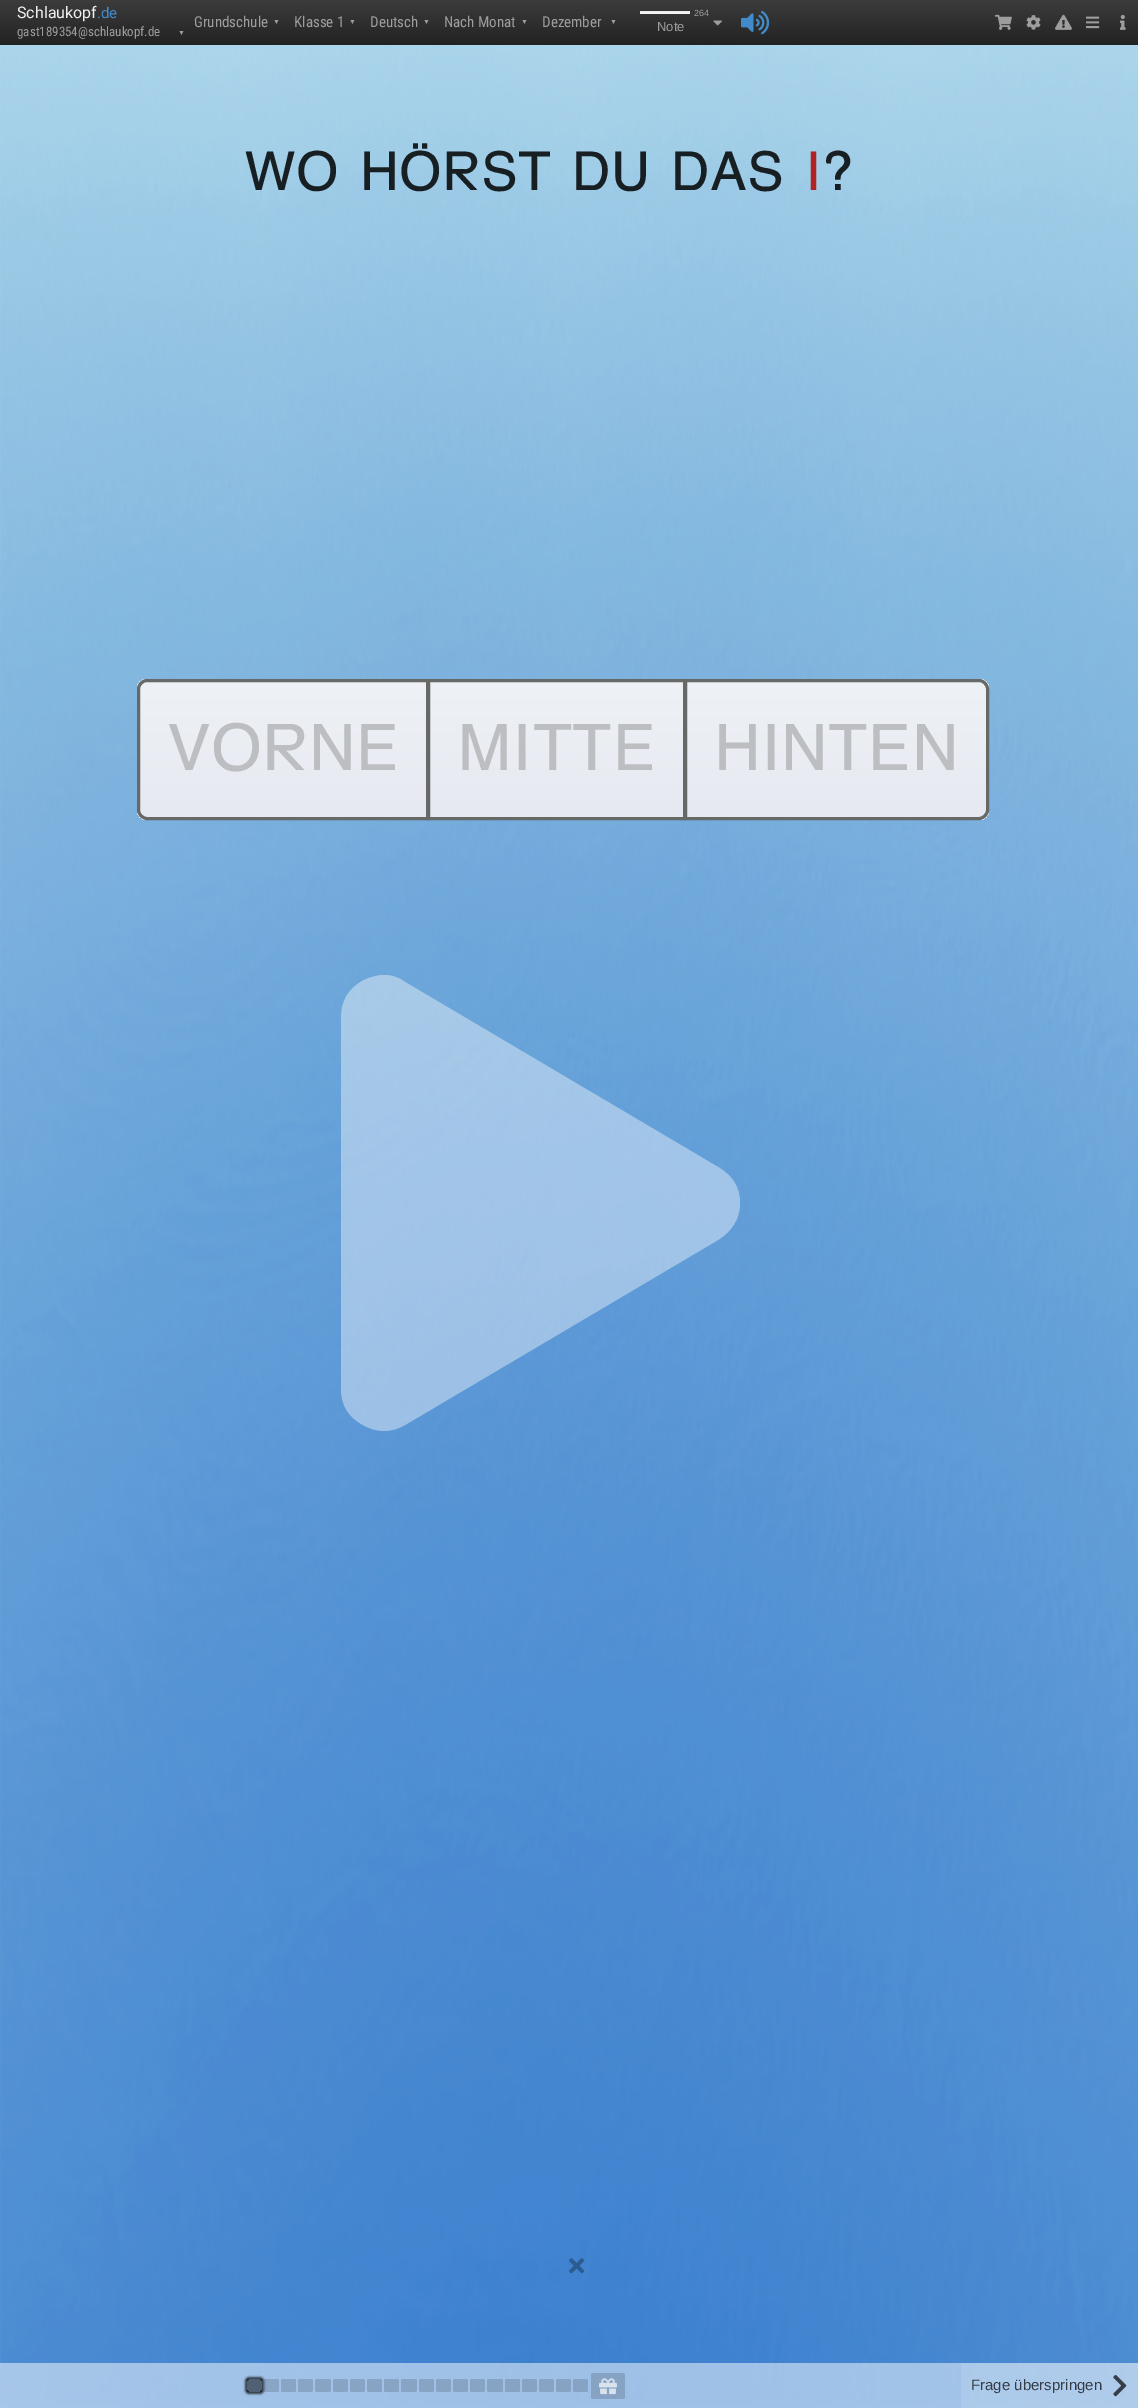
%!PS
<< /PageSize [1138 2408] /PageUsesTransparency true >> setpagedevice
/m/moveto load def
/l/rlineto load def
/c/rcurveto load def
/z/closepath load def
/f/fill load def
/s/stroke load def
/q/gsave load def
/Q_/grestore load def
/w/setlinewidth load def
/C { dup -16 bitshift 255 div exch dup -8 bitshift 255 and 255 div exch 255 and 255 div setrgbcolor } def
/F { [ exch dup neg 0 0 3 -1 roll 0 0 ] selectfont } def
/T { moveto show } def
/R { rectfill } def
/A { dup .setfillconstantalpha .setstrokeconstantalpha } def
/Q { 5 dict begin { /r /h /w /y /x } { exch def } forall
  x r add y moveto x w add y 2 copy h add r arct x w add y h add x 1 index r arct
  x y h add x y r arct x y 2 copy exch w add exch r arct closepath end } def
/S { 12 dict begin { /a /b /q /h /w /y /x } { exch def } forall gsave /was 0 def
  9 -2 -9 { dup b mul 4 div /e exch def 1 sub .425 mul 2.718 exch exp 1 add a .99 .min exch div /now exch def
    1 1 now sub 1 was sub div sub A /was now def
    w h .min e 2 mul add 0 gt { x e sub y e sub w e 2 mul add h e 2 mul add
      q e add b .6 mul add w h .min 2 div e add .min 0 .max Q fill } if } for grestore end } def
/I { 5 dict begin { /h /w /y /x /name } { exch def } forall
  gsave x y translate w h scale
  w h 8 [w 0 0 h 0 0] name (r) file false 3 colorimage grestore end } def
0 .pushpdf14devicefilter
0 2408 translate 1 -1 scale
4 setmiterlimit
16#FFFFFF C
0 0 1138 2408 R
q 0 0 m 1138 0 l 0 45 l -1138 0 l z clip newpath
<< /ShadingType 2 /ColorSpace /DeviceRGB /Coords [569 0 569 45] /Extend [true true] /Function << /FunctionType 2 /Domain [0 1] /C0 [.235 .235 .235] /C1 [.133 .133 .133] /N 1 >> >> shfill Q_
/Roboto-Regular 16 F
16#EEEEEE C
(Schlaukopf) 17 18 T
/Roboto-Regular 15 F
16#428BCA C
(.de) 97 18 T
/RobotoCondensed-Regular 13 F
16#9D9D9D C
(gast189354@schlaukopf.de) 17 36 T
/LiberationSans-Regular 7 F
178 35 m 4 0 (▼) ashow
q 640 11 50 3 1.5 Q clip newpath
<< /ShadingType 2 /ColorSpace /DeviceRGB /Coords [665 11 665 14] /Extend [true true] /Function << /FunctionType 2 /Domain [0 1] /C0 [.922 .922 .922] /C1 [.961 .961 .961] /N 1 >> >> shfill Q_
/LiberationSans-Regular 9 F
(264) 694 16 T
/LiberationSans-Regular 13 F
(Note) 657 31 T
(1.rgb) 713 20 9 6 I
(2.rgb) 741 10 29 25 I
(8.rgb) 0 45 1138 2363 I
0.4 A
16#FFFFFF C
718 1167 m 14 8 22 20 22 36 c 0 16 -8 28 -22 37 c -313 185 l -14 8 -28 8 -42 0 c -15 -8 -22 -20 -22 -37 c 0 -370 l 0 -18 8 -30 23 -38 c 15 -7 29 -7 41 2 c z f
/RobotoCondensed-Regular 15 F
1 A
16#9D9D9D C
(Grundschule) 194 27 T
/LiberationSans-Regular 7 F
273 24 m 4 0 (▼) ashow
/RobotoCondensed-Regular 15 F
(Klasse 1) 294 27 T
/LiberationSans-Regular 7 F
349 24 m 4 0 (▼) ashow
/RobotoCondensed-Regular 15 F
(Deutsch) 370 27 T
/LiberationSans-Regular 7 F
423 24 m 4 0 (▼) ashow
/RobotoCondensed-Regular 15 F
(Nach Monat) 444 27 T
/LiberationSans-Regular 7 F
521 24 m 4 0 (▼) ashow
/RobotoCondensed-Regular 15 F
(Dezember) 542 27 T
/LiberationSans-Regular 7 F
610 24 m 4 0 (▼) ashow
(3.rgb) 995 14 17 16 I
(4.rgb) 1026 15 15 15 I
(5.rgb) 1055 14 17 16 I
(6.rgb) 1086 16 14 13 I
(7.rgb) 1120 14 6 16 I
/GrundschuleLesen-Regular 55 F
16#181F23 C
(WO HÖRST DU DAS) 244 190 T
16#B22222 C
(I) 805 190 T
16#181F23 C
(?) 822 190 T
q 427 679 m 259 0 l 0 3 l -259 0 l z clip newpath
<< /ShadingType 2 /ColorSpace /DeviceRGB /Coords [556 682 556 547] /Extend [true true] /Function << /FunctionType 2 /Domain [0 1] /C0 [.902 .914 .941] /C1 [.933 .945 .961] /N 1 >> >> shfill Q_
q 429 682 m 255 0 l 0 135 l -255 0 l z clip newpath
<< /ShadingType 2 /ColorSpace /DeviceRGB /Coords [556 817 556 682] /Extend [true true] /Function << /FunctionType 2 /Domain [0 1] /C0 [.902 .914 .941] /C1 [.933 .945 .961] /N 1 >> >> shfill Q_
q 427 817 m 259 0 l 0 3 l -259 0 l z clip newpath
<< /ShadingType 2 /ColorSpace /DeviceRGB /Coords [556 952 556 817] /Extend [true true] /Function << /FunctionType 2 /Domain [0 1] /C0 [.902 .914 .941] /C1 [.933 .945 .961] /N 1 >> >> shfill Q_
0.95 A
16#606262 C
3 w
428.5 680.5 256 138 rectstroke
q
147 679 m 282 0 l 0 141 l -282 0 l -5.5 0 -10 -4.5 -10 -10 c 0 -121 l 0 -5.5 4.5 -10 10 -10 c z clip newpath
1 A
q 137 679 m 292 0 l 0 3 l -292 0 l z clip newpath
<< /ShadingType 2 /ColorSpace /DeviceRGB /Coords [283 682 283 547] /Extend [true true] /Function << /FunctionType 2 /Domain [0 1] /C0 [.902 .914 .941] /C1 [.933 .945 .961] /N 1 >> >> shfill Q_
q 137 682 m 292 0 l 0 135 l -292 0 l z clip newpath
<< /ShadingType 2 /ColorSpace /DeviceRGB /Coords [283 817 283 682] /Extend [true true] /Function << /FunctionType 2 /Domain [0 1] /C0 [.902 .914 .941] /C1 [.933 .945 .961] /N 1 >> >> shfill Q_
q 137 817 m 292 0 l 0 3 l -292 0 l z clip newpath
<< /ShadingType 2 /ColorSpace /DeviceRGB /Coords [283 952 283 817] /Extend [true true] /Function << /FunctionType 2 /Domain [0 1] /C0 [.902 .914 .941] /C1 [.933 .945 .961] /N 1 >> >> shfill Q_
Q_
147 680.5 m 280.5 0 l 0 138 l -280.5 0 l -4.5 0 -8.5 -4 -8.5 -8.5 c 0 -121 l 0 -4.5 4 -8.5 8.5 -8.5 c z s
/GrundschuleLesen-Regular 66 F
1 A
16#BCBEC2 C
(VORNE) 167 770 T
(MITTE) 457 770 T
q
684 679 m 295 0 l 5.5 0 10 4.5 10 10 c 0 121 l 0 5.5 -4.5 10 -10 10 c -295 0 l z clip newpath
q 684 679 m 305 0 l 0 3 l -305 0 l z clip newpath
<< /ShadingType 2 /ColorSpace /DeviceRGB /Coords [836 682 836 547] /Extend [true true] /Function << /FunctionType 2 /Domain [0 1] /C0 [.902 .914 .941] /C1 [.933 .945 .961] /N 1 >> >> shfill Q_
q 684 682 m 305 0 l 0 135 l -305 0 l z clip newpath
<< /ShadingType 2 /ColorSpace /DeviceRGB /Coords [836 817 836 682] /Extend [true true] /Function << /FunctionType 2 /Domain [0 1] /C0 [.902 .914 .941] /C1 [.933 .945 .961] /N 1 >> >> shfill Q_
q 684 817 m 305 0 l 0 3 l -305 0 l z clip newpath
<< /ShadingType 2 /ColorSpace /DeviceRGB /Coords [836 952 836 817] /Extend [true true] /Function << /FunctionType 2 /Domain [0 1] /C0 [.902 .914 .941] /C1 [.933 .945 .961] /N 1 >> >> shfill Q_
Q_
0.95 A
16#606262 C
685.5 680.5 m 293.5 0 l 4.5 0 8.5 4 8.5 8.5 c 0 121 l 0 4.5 -4 8.5 -8.5 8.5 c -293.5 0 l z s
1 A
16#BCBEC2 C
(HINTEN) 714 770 T
(9.rgb) 569 2258 16 16 I
0.5 A
16#FFFFFF C
0 2363 1138 45 R
q
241 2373 m 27 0 l 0 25 l -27 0 l z 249 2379 m 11 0 l 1 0 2 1 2 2 c 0 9 l 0 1 -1 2 -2 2 c -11 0 l -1 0 -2 -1 -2 -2 c 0 -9 l 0 -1 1 -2 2 -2 c z eoclip newpath
1 A
16#000000 C
245 2377 19 17 4 1 .7 S
Q_
16#000000 C
247 2379 15 13 2 Q f
0.15 A
264 2379 15 13 2 Q f
1 A
16#88A5C5 C
281 2379 15 13 2 Q f
298 2379 15 13 2 Q f
16#88A4C5 C
315 2379 16 13 2 Q f
333 2379 15 13 2 Q f
350 2379 15 13 2 Q f
367 2379 15 13 2 Q f
16#87A4C5 C
384 2379 15 13 2 Q f
401 2379 16 13 2 Q f
16#87A4C4 C
419 2379 15 13 2 Q f
436 2379 15 13 2 Q f
453 2379 15 13 2 Q f
470 2379 15 13 2 Q f
16#86A3C4 C
487 2379 16 13 2 Q f
505 2379 15 13 2 Q f
522 2379 15 13 2 Q f
16#87A4C4 C
539 2379 15 13 2 Q f
16#86A3C4 C
556 2379 15 13 2 Q f
573 2379 15 13 2 Q f
591 2373 34 26 2 Q f
(10.rgb) 599 2378 18 17 I
0.1 A
16#FFFFFF C
961 2363 177 45 R
/LiberationSans-Regular 15 F
1 A
16#343D46 C
(Frage überspringen) 971 2390 T
(11.rgb) 1113 2375 14 22 I
.poppdf14devicefilter showpage
